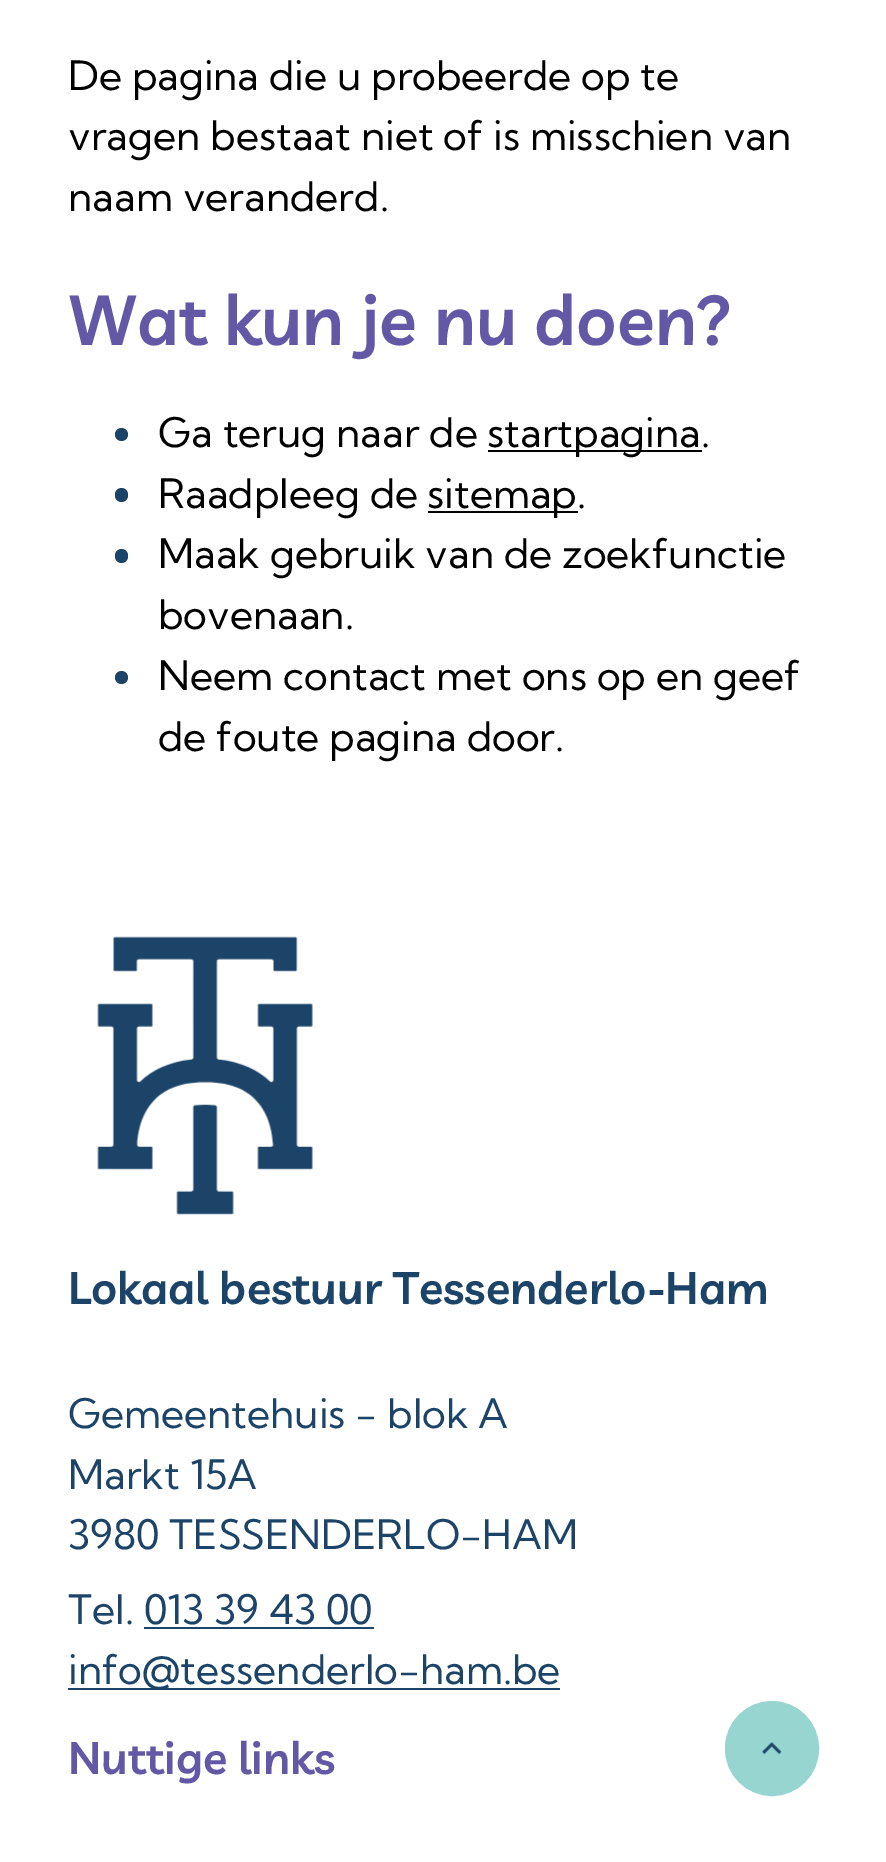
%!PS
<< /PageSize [886 1862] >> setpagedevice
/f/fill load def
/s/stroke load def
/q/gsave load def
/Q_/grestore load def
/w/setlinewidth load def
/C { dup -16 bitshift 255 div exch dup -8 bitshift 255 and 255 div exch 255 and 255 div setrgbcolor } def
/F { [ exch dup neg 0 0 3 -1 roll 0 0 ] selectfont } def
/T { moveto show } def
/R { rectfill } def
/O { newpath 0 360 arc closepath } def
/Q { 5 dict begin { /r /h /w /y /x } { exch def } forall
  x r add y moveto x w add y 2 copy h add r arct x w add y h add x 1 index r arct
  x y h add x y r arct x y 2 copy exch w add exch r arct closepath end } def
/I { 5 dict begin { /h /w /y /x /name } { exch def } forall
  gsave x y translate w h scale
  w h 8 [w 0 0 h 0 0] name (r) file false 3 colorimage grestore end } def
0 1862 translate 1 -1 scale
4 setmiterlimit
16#FFFFFF C
0 0 886 1862 R
/KumbhSans-Regular 40.5 F
16#000000 C
(De pagina die u probeerde op te) 68 90 T
(vragen bestaat niet of is misschien van) 68 150 T
(naam veranderd.) 68 211 T
/Livvic-SemiBold 69.75 F
16#6258A6 C
(Wat kun je nu doen?) 68 345 T
16#1C4468 C
121.5 434.5 6.5 O f
/KumbhSans-Regular 40.5 F
16#000000 C
(Ga terug naar de) 158 447 T
488 450 214 2 R
(startpagina.) 487 447 T
16#1C4468 C
115 488 13 14 6.5 Q f
16#000000 C
(Raadpleeg de) 158 508 T
428 511 150 2 R
(sitemap.) 427 508 T
16#1C4468 C
115 549 13 14 6.5 Q f
16#000000 C
(Maak gebruik van de zoekfunctie) 158 568 T
(bovenaan.) 158 629 T
16#1C4468 C
121.5 677.5 6.5 O f
16#000000 C
(Neem contact met ons op en geef) 158 690 T
(de foute pagina door.) 158 751 T
(1.rgb) 97 936 216 279 I
/Livvic-SemiBold 45 F
16#1C4468 C
(Lokaal bestuur Tessenderlo-Ham) 68 1304 T
/KumbhSans-Regular 40.5 F
(Gemeentehuis - blok A) 68 1428 T
(Markt 15A) 68 1489 T
(3980 TESSENDERLO-HAM) 68 1549 T
(Tel. 013 39 43 00) 68 1624 T
144 1627 230 2 R
68 1688 492 2 R
(info@tessenderlo-ham.be) 68 1684 T
/Livvic-SemiBold 45 F
16#6258A6 C
(Nuttige links) 68 1774 T
16#96D5D0 C
726 1702 92 93 46 Q q f Q_
2 w
s
(2.rgb) 761 1742 21 13 I
showpage
